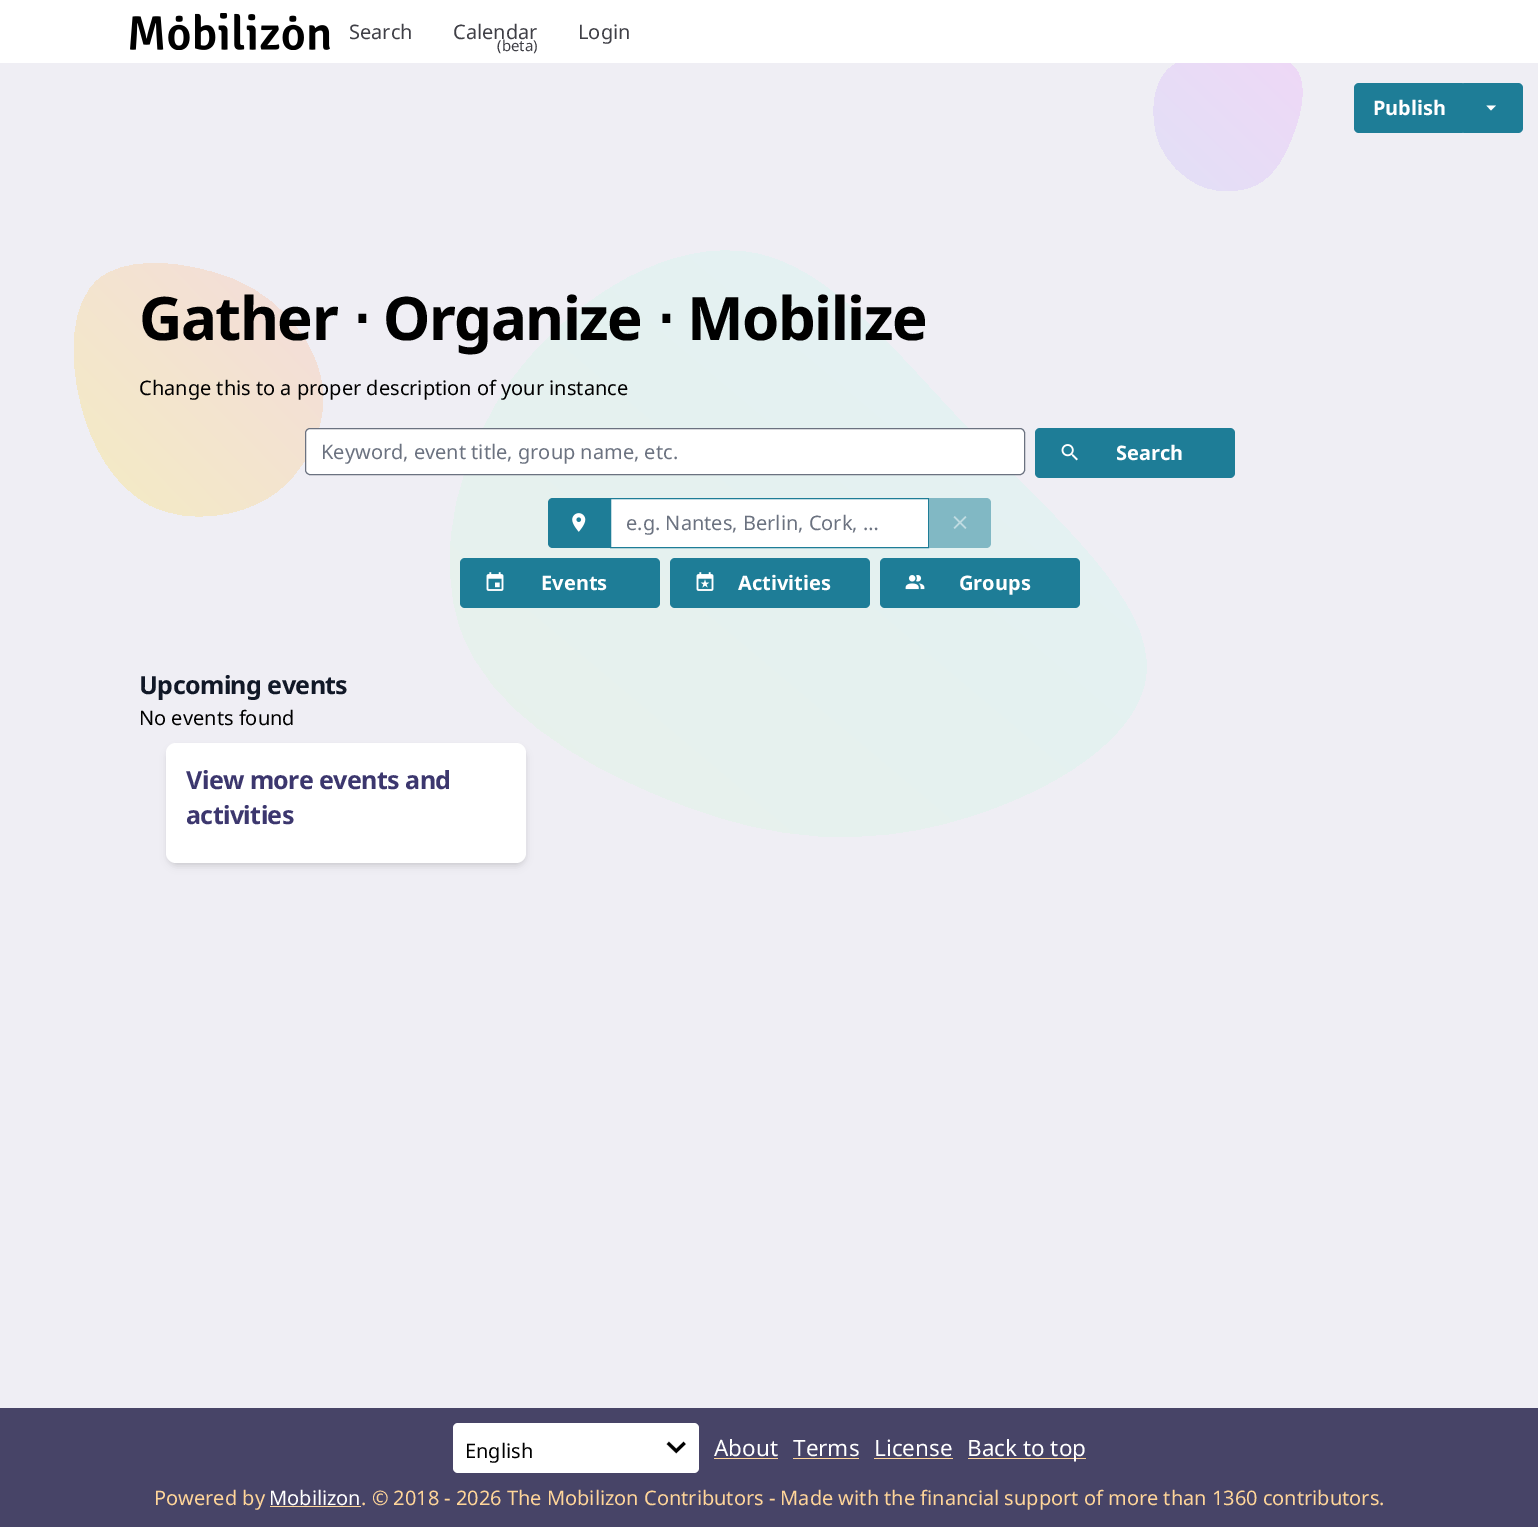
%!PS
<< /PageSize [1538 1527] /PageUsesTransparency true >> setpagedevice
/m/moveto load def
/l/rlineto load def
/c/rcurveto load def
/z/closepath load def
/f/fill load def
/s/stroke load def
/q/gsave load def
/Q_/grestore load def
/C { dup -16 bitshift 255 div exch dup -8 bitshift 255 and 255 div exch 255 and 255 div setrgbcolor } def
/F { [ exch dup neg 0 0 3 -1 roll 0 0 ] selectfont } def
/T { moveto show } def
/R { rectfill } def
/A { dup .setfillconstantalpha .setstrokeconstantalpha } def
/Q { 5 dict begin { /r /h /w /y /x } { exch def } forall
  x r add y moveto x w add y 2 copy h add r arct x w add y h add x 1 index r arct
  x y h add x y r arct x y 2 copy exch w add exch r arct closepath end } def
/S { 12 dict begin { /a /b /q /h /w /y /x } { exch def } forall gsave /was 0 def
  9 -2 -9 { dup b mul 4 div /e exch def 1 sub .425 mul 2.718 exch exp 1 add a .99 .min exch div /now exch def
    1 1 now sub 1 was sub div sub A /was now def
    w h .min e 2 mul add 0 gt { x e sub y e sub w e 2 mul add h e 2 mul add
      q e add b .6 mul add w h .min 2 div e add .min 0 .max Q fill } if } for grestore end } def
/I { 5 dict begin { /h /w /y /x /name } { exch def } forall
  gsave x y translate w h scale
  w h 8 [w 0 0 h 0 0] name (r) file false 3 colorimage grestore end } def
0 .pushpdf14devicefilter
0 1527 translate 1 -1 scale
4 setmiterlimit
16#EFEEF4 C
0 0 1538 1527 R
q 1297 71 m 10 16 4 42 -4 63 c -8 22 -18 40 -34 49 c -15 9 -37 11 -57 3 c -19 -8 -36 -24 -44 -47 c -7 -23 -6 -50 8 -67 c 14 -16 41 -22 68 -22 c 26 0 53 6 63 21 c z clip newpath
<< /ShadingType 2 /ColorSpace /DeviceRGB /Coords [1154 191 1295 43] /Extend [true true] /Function << /FunctionType 2 /Domain [0 1] /C0 [.886 .878 .965] /C1 [.937 .847 .969] /N 1 >> >> shfill Q_
16#FFFFFF C
0 0 1538 63 R
(1.rgb) 130 13 200 37 I
/NotoSans-Regular 20 F
16#3F3F46 C
(Search) 349 39 T
(Calendar) 453 39 T
/NotoSans-Regular 15 F
(\(beta\)) 497 51 T
/NotoSans-Regular 20 F
(Login) 578 39 T
q 287 317 m 20 21 36 50 36 83 c -1 34 -18 72 -51 95 c -33 22 -82 29 -120 11 c -37 -18 -62 -61 -72 -107 c -11 -46 -8 -96 18 -119 c 26 -22 73 -19 109 -9 c 36 9 60 24 80 46 c z clip newpath
<< /ShadingType 2 /ColorSpace /DeviceRGB /Coords [74 516 327 267] /Extend [true true] /Function << /FunctionType 2 /Domain [0 1] /C0 [.957 .925 .765] /C1 [.953 .863 .863] /N 1 >> >> shfill Q_
q 972 433 m 80 83 181 168 174 241 c -7 73 -121 133 -221 154 c -99 21 -184 2 -267 -33 c -84 -35 -167 -86 -196 -163 c -29 -77 -4 -181 56 -260 c 61 -79 156 -133 234 -119 c 79 14 139 96 220 180 c z clip newpath
<< /ShadingType 2 /ColorSpace /DeviceRGB /Coords [450 837 1027 151] /Extend [true true] /Function << /FunctionType 2 /Domain [0 1] /C0 [.914 .945 .922] /C1 [.886 .949 .961] /N 1 >> >> shfill Q_
16#1E7D97 C
1354 83 112 50 5 Q f
/NotoSans-Bold 20 F
16#FFFFFF C
(Publish) 1373 115 T
16#1E7D97 C
1460 83 63 50 5 Q f
16#FFFFFF C
1486.5 105.5 m 4.5 5 l 5 -5 l z f
/NotoSans-Bold 60 F
16#000000 C
139 340 m -1.5 0 (Gather) ashow
/DejaVuSans-Bold 60 F
352 340 m -1.5 0 (⋅) ashow
/NotoSans-Bold 60 F
383 340 m -1.5 0 (Organize) ashow
/DejaVuSans-Bold 60 F
656 340 m -1.5 0 (⋅) ashow
/NotoSans-Bold 60 F
687 340 m -1.5 0 (Mobilize) ashow
/NotoSans-Regular 20 F
(Change this to a proper description of your instance) 139 395 T
16#FFFFFF C
305.5 428.5 719 46 4.5 Q q f Q_
16#6B7280 C
s
(Keyword, event title, group name, etc.) 321 459 T
16#1E7D97 C
1035 428 200 50 5 Q f
(2.rgb) 1061 444 17 17 I
/NotoSans-Bold 20 F
16#FFFFFF C
(Search) 1116 460 T
16#1E7D97 C
553 498 m 57 0 l 0 50 l -57 0 l -3 0 -5 -2 -5 -5 c 0 -40 l 0 -3 2 -5 5 -5 c z f
(3.rgb) 572 513 14 19 I
16#FFFFFF C
610.5 498.5 m 318 0 l 0 49 l -318 0 l z q f Q_
16#1E7D97 C
s
/NotoSans-Regular 20 F
16#6B7280 C
(e.g. Nantes, Berlin, Cork, …) 626 530 T
16#81B8C4 C
929 498 m 57 0 l 3 0 5 2 5 5 c 0 40 l 0 3 -2 5 -5 5 c -57 0 l z f
(4.rgb) 953 516 14 13 I
16#1E7D97 C
460 558 200 50 5 Q f
(5.rgb) 486 572 18 19 I
/NotoSans-Bold 20 F
16#FFFFFF C
(Events) 541 590 T
16#1E7D97 C
670 558 200 50 5 Q f
(6.rgb) 696 572 18 19 I
16#FFFFFF C
(Activities) 738 590 T
16#1E7D97 C
880 558 200 50 5 Q f
(7.rgb) 905 575 20 15 I
16#FFFFFF C
(Groups) 959 590 T
/NotoSans-Bold 25 F
16#111827 C
139 694 m -.6 0 (Upcoming events) ashow
/NotoSans-Regular 20 F
16#000000 C
(No events found) 139 725 T
169 748 355 115 8 2.5 .1 S
168 749 357 117 9 4 .1 S
16#FFFFFF C
166 743 360 120 10 Q f
/NotoSans-Bold 25 F
16#3C376E C
186 789 m -.6 0 (View more events and) ashow
186 824 m -.6 0 (activities) ashow
16#474467 C
0 1408 1538 119 R
16#FFFFFF C
453 1423 246 50 5 Q f
(8.rgb) 666 1441 20 13 I
/NotoSans-Regular 20 F
16#000000 C
(English) 465 1458 T
/NotoSans-Regular 22.5 F
16#FFFFFF C
(About) 714 1456 T
16#FFD599 C
714 1458 64 1 R
16#FFFFFF C
(Terms) 793 1456 T
16#FFD599 C
793 1458 66 1 R
16#FFFFFF C
(License) 874 1456 T
16#FFD599 C
874 1458 79 1 R
968 1458 118 1 R
16#FFFFFF C
(Back to top) 967 1456 T
/NotoSans-Regular 20 F
16#FFD599 C
(Powered by) 154 1505 T
16#FFFFFF C
(Mobilizon) 269 1505 T
16#FFD599 C
(. © 2018 - 2026 The Mobilizon Contributors - Made with the financial support of more than 1360 contributors.) 361 1505 T
270 1506 91 1 R
.poppdf14devicefilter showpage
